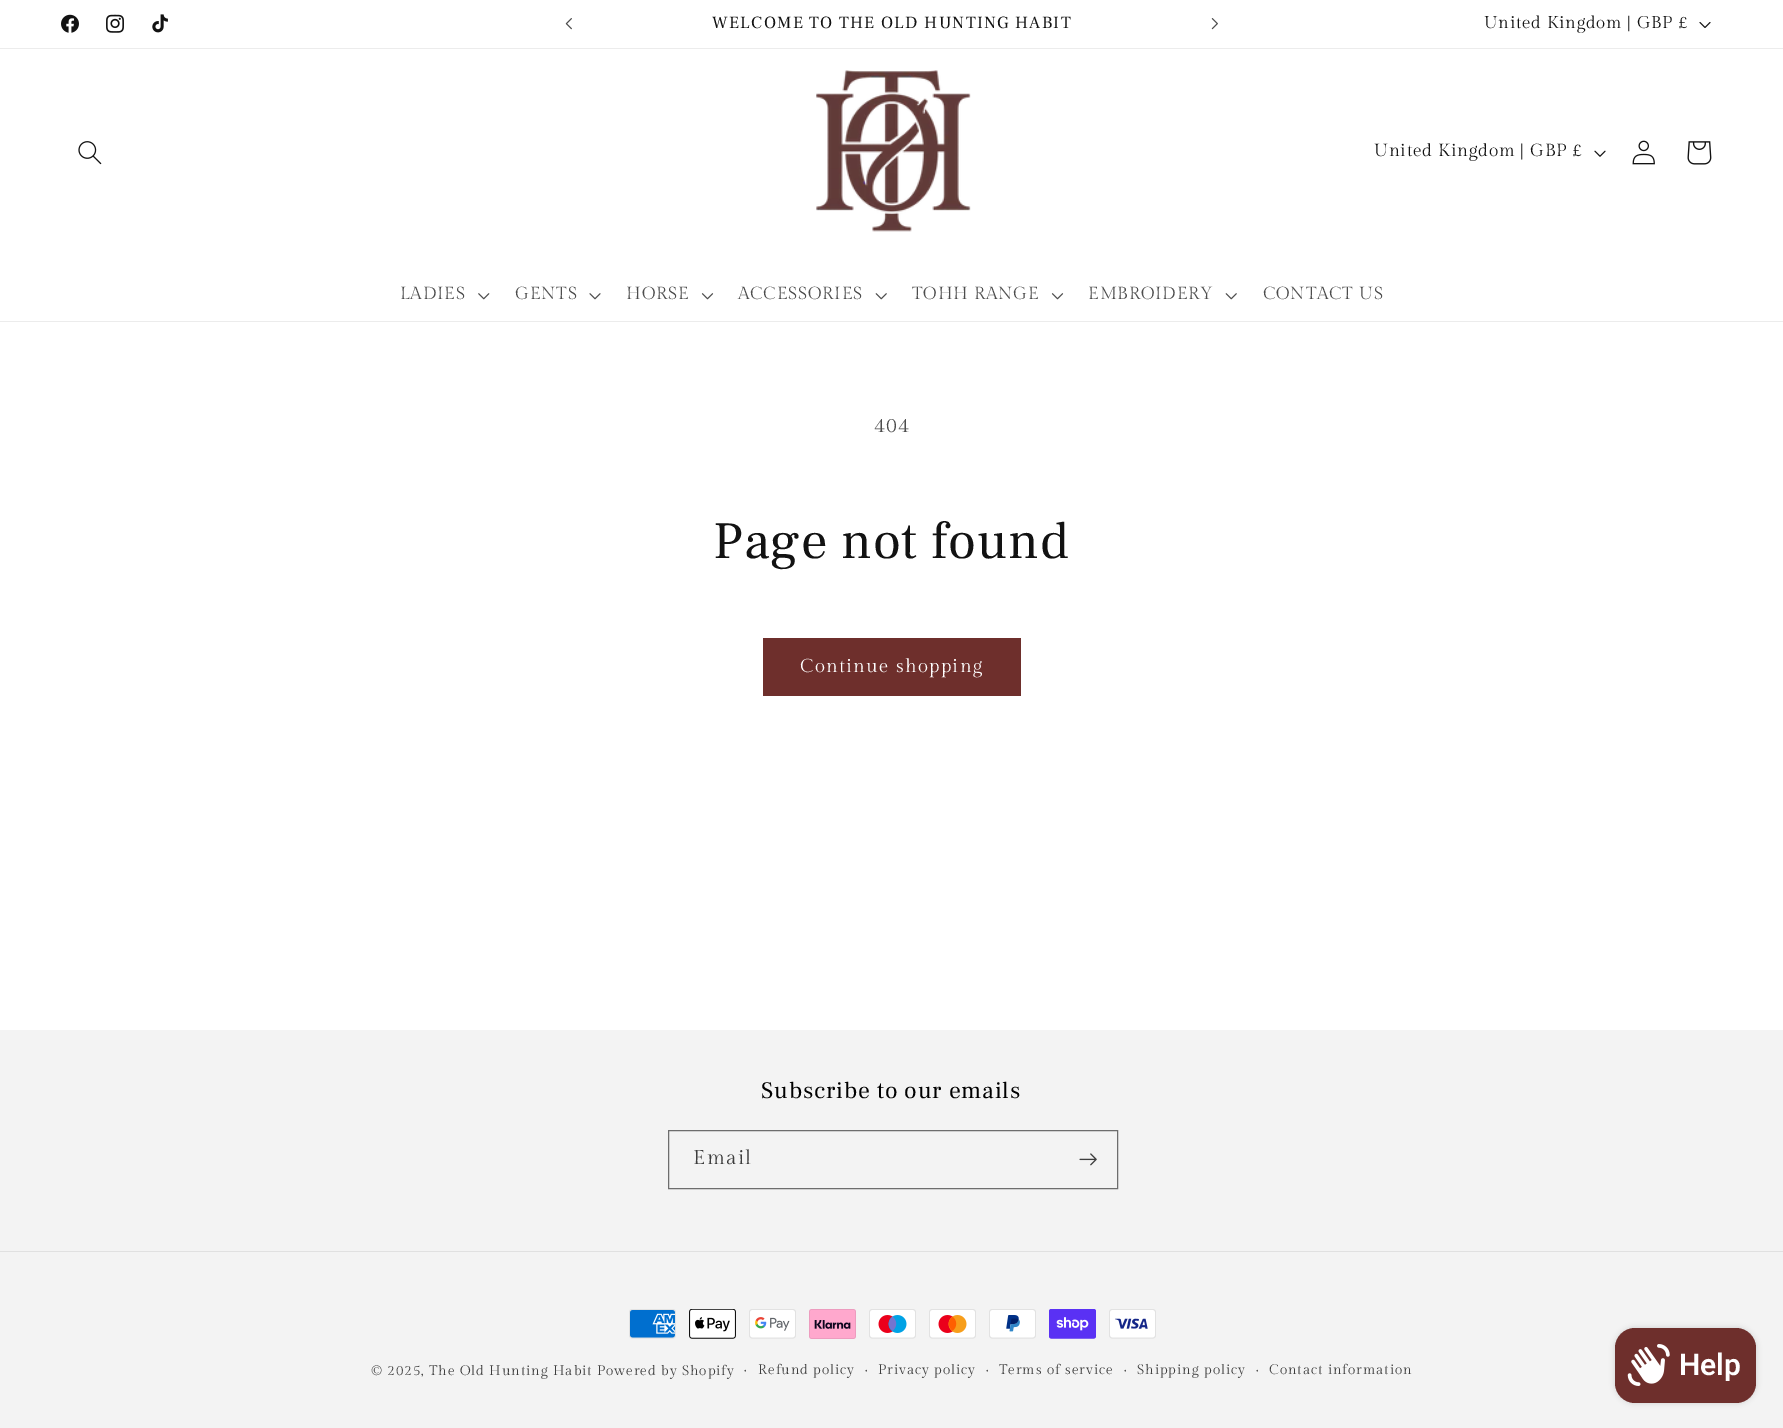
%!PS
<< /PageSize [1783 1428] /PageUsesTransparency true >> setpagedevice
/m/moveto load def
/f/fill load def
/C { dup -16 bitshift 255 div exch dup -8 bitshift 255 and 255 div exch 255 and 255 div setrgbcolor } def
/F { [ exch dup neg 0 0 3 -1 roll 0 0 ] selectfont } def
/T { moveto show } def
/R { rectfill } def
/A { dup .setfillconstantalpha .setstrokeconstantalpha } def
/Q { 5 dict begin { /r /h /w /y /x } { exch def } forall
  x r add y moveto x w add y 2 copy h add r arct x w add y h add x 1 index r arct
  x y h add x y r arct x y 2 copy exch w add exch r arct closepath end } def
/S { 12 dict begin { /a /b /q /h /w /y /x } { exch def } forall gsave /was 0 def
  9 -2 -9 { dup b mul 4 div /e exch def 1 sub .425 mul 2.718 exch exp 1 add a .99 .min exch div /now exch def
    1 1 now sub 1 was sub div sub A /was now def
    w h .min e 2 mul add 0 gt { x e sub y e sub w e 2 mul add h e 2 mul add
      q e add b .6 mul add w h .min 2 div e add .min 0 .max Q fill } if } for grestore end } def
/I { 5 dict begin { /h /w /y /x /name } { exch def } forall
  gsave x y translate w h scale
  w h 8 [w 0 0 h 0 0] name (r) file false 3 colorimage grestore end } def
0 .pushpdf14devicefilter
0 1428 translate 1 -1 scale
4 setmiterlimit
16#FFFFFF C
0 0 1783 1428 R
16#ECECEC C
0 48 1783 1 R
(1.rgb) 61 14 18 19 I
(2.rgb) 106 14 18 19 I
(3.rgb) 152 14 16 19 I
(4.rgb) 565 18 7 12 I
/FrankRuhlLibre-Regular 17.1 F
16#121212 C
712 28 m 1.25 0 (WELCOME TO THE OLD HUNTING HABIT) ashow
(5.rgb) 1211 18 7 12 I
/GildaDisplay-Regular 17.1 F
1484 28 m .75 0 (United Kingdom | GBP £) ashow
(6.rgb) 1699 22 12 6 I
16#ECECEC C
0 321 1783 1 R
(7.rgb) 78 141 24 24 I
(8.rgb) 816 70 155 162 I
/GildaDisplay-Regular 17.5 F
16#121212 C
1374 156 m .75 0 (United Kingdom | GBP £) ashow
(9.rgb) 1594 150 12 7 I
(10.rgb) 1632 140 23 25 I
(11.rgb) 1687 141 25 24 I
16#4D4D4D C
400 299 m .75 0 (LADIES) ashow
(12.rgb) 478 293 12 7 I
515 299 m .75 0 (GENTS) ashow
(13.rgb) 589 293 12 7 I
626 299 m .75 0 (HORSE) ashow
(14.rgb) 701 293 13 7 I
738 299 m .75 0 (ACCESSORIES) ashow
(15.rgb) 875 293 12 7 I
912 299 m .75 0 (TOHH RANGE) ashow
(14.rgb) 1051 293 13 7 I
1088 299 m .75 0 (EMBROIDERY) ashow
(15.rgb) 1225 293 12 7 I
1263 299 m .75 0 (CONTACT US) ashow
/GildaDisplay-Regular 20 F
874 432 m .75 0 (404) ashow
/FrankRuhlLibre-Regular 52.5 F
16#121212 C
713 558 m .75 0 (Page not found) ashow
16#6E2F2C C
763 638 258 58 R
/GildaDisplay-Regular 18.75 F
16#FFFFFF C
800 672 m 1.25 0 (Continue shopping) ashow
16#F3F3F3 C
0 1030 1783 398 R
/FrankRuhlLibre-Regular 23.6 F
16#000000 C
761 1098 m .75 0 (Subscribe to our emails) ashow
16#6D6D6D C
668.5 1130.5 449 58 rectstroke
/GildaDisplay-Regular 20 F
16#3D3D3D C
693 1164 m 1.25 0 (Email) ashow
(16.rgb) 1079 1153 18 13 I
16#E0E0E0 C
0 1251 1783 1 R
(17.rgb) 629 1309 47 30 I
(18.rgb) 689 1309 47 30 I
(19.rgb) 749 1309 47 30 I
(20.rgb) 809 1309 47 30 I
(21.rgb) 869 1309 47 30 I
(22.rgb) 929 1309 47 30 I
(23.rgb) 989 1309 47 30 I
(24.rgb) 1049 1309 47 30 I
(25.rgb) 1109 1309 47 30 I
/GildaDisplay-Regular 13.75 F
16#3D3D3D C
371 1375 m .9 0 (© 2025, The Old Hunting Habit Powered by Shopify) ashow
/GildaDisplay-Regular 15 F
744 1375 m .9 0 (·) ashow
/GildaDisplay-Regular 13.75 F
758 1374 m .9 0 (Refund policy) ashow
/GildaDisplay-Regular 15 F
865 1375 m .9 0 (·) ashow
/GildaDisplay-Regular 13.75 F
878 1374 m .9 0 (Privacy policy) ashow
/GildaDisplay-Regular 15 F
986 1375 m .9 0 (·) ashow
/GildaDisplay-Regular 13.75 F
999 1374 m .9 0 (Terms of service) ashow
/GildaDisplay-Regular 15 F
1124 1375 m .9 0 (·) ashow
/GildaDisplay-Regular 13.75 F
1137 1374 m .9 0 (Shipping policy) ashow
/GildaDisplay-Regular 15 F
1256 1375 m .9 0 (·) ashow
/GildaDisplay-Regular 13.75 F
1269 1374 m .9 0 (Contact information) ashow
16#000000 C
1615 1328 141 75 20 3 .15 S
16#6E2F2C C
1615 1328 141 75 20 Q f
(26.rgb) 1627 1344 43 42 I
/Roboto-SemiBold 30 F
16#FFFFFF C
(Help) 1679 1375 T
.poppdf14devicefilter showpage
